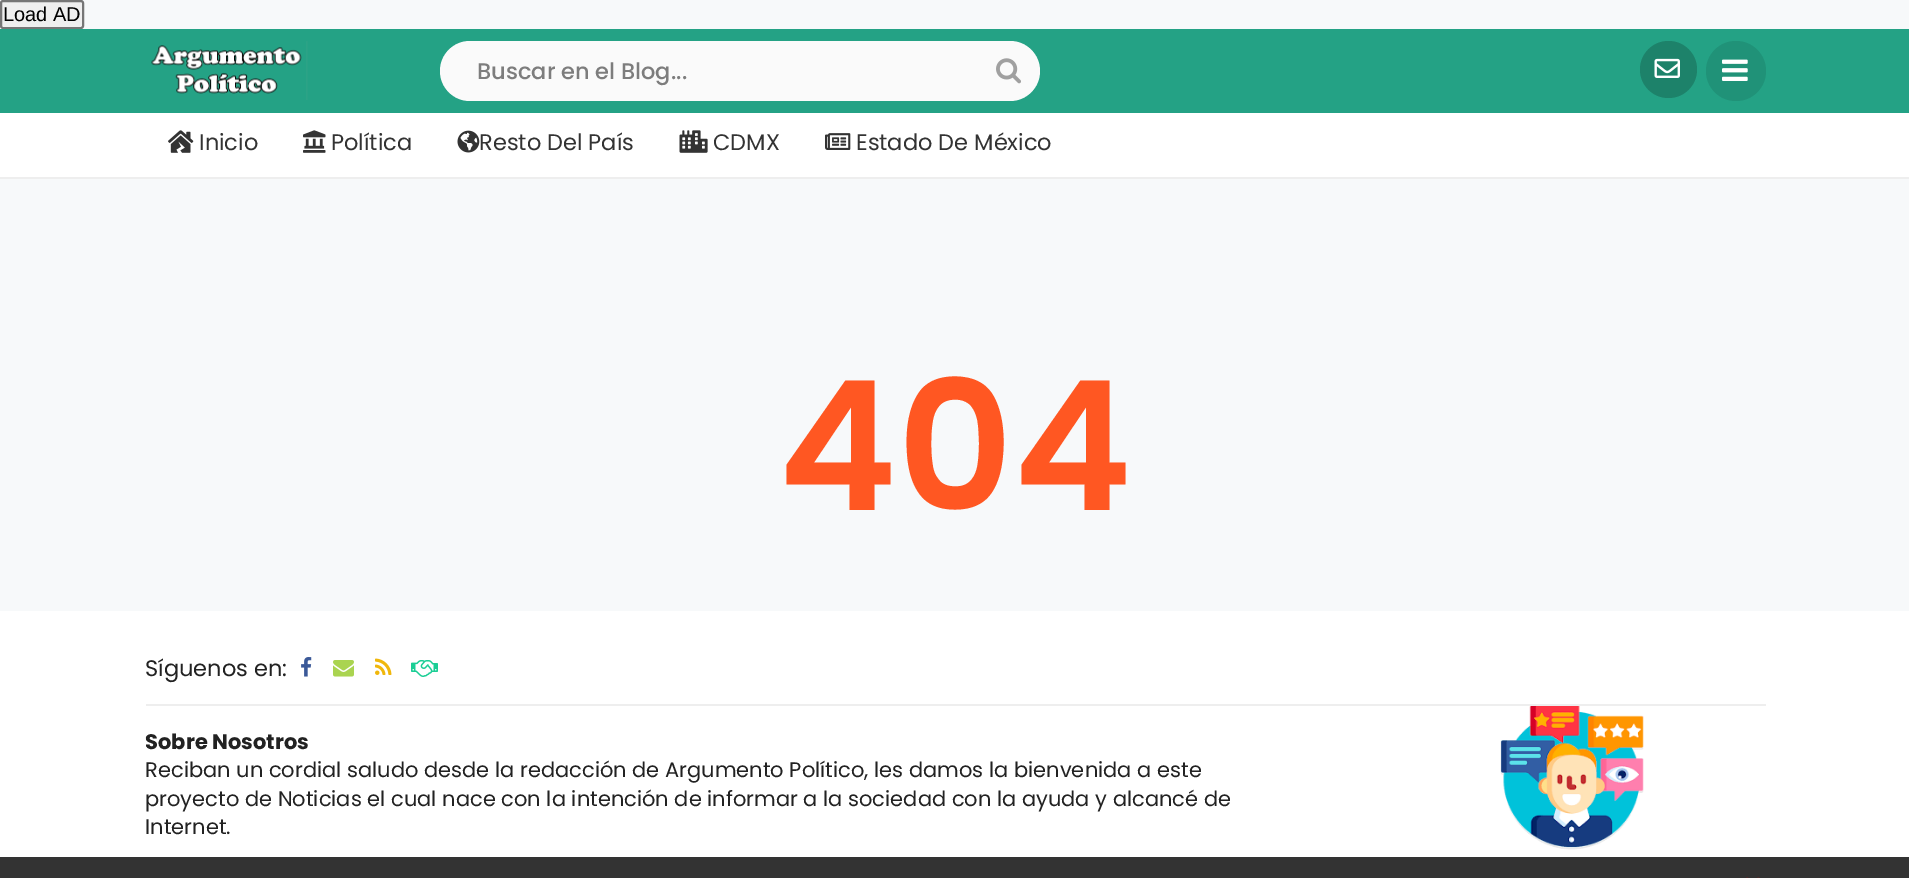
%!PS
<< /PageSize [1909 878] >> setpagedevice
/f/fill load def
/s/stroke load def
/q/gsave load def
/Q_/grestore load def
/w/setlinewidth load def
/C { dup -16 bitshift 255 div exch dup -8 bitshift 255 and 255 div exch 255 and 255 div setrgbcolor } def
/F { [ exch dup neg 0 0 3 -1 roll 0 0 ] selectfont } def
/T { moveto show } def
/R { rectfill } def
/O { newpath 0 360 arc closepath } def
/Q { 5 dict begin { /r /h /w /y /x } { exch def } forall
  x r add y moveto x w add y 2 copy h add r arct x w add y h add x 1 index r arct
  x y h add x y r arct x y 2 copy exch w add exch r arct closepath end } def
/I { 5 dict begin { /h /w /y /x /name } { exch def } forall
  gsave x y translate w h scale
  w h 8 [w 0 0 h 0 0] name (r) file false 3 colorimage grestore end } def
0 878 translate 1 -1 scale
4 setmiterlimit
16#F7F9FA C
0 0 1909 878 R
16#EFEFEF C
1 1 82 27 2 Q q f Q_
16#767676 C
2 w
s
/LiberationSans-Regular 20 F
16#000000 C
(Load AD) 3 21 T
16#24A285 C
0 29 1909 84 R
(1.rgb) 151 41 157 59 I
16#FAFAFA C
440 41 600 60 30 Q f
/Poppins-Medium 22.5 F
16#7D7D7D C
(Buscar en el Blog...) 477 79 T
(2.rgb) 996 58 25 26 I
16#1D826A C
1668.5 69.5 28.5 O f
(3.rgb) 1654 58 26 20 I
16#209278 C
1736 71 30 O f
(4.rgb) 1722 59 26 22 I
16#FFFFFF C
0 113 1909 64 R
16#EEEEEE C
0 177 1909 2 R
(5.rgb) 168 130 26 23 I
/Poppins-Regular 22.5 F
16#333333 C
(Inicio) 199 150 T
(6.rgb) 303 130 23 23 I
(Política) 331 150 T
(7.rgb) 457 130 23 23 I
(Resto Del País) 479 150 T
(8.rgb) 679 130 29 23 I
(CDMX) 713 150 T
(9.rgb) 825 133 26 17 I
(Estado De México) 856 150 T
/Poppins-SemiBold 180 F
16#FF5722 C
(404) 778 510 T
16#FFFFFF C
0 611 1909 246 R
(10.rgb) 1500 706 144 144 I
16#EEEEEE C
146 704 1620 2 R
/Poppins-Regular 22.5 F
16#222222 C
(Síguenos en:) 145 676 T
(11.rgb) 301 657 11 20 I
(12.rgb) 333 660 21 17 I
(13.rgb) 375 658 17 17 I
(14.rgb) 411 660 27 17 I
/Poppins-Bold 21 F
(Sobre Nosotros) 145 749 T
/Poppins-Regular 21 F
(Reciban un cordial saludo desde la redacción de Argumento Político, les damos la bienvenida a este) 145 777 T
(proyecto de Noticias el cual nace con la intención de informar a la sociedad con la ayuda y alcancé de) 145 806 T
(Internet.) 145 834 T
16#333333 C
0 857 1909 21 R
(15.rgb) 1746 877 14 1 I
showpage
